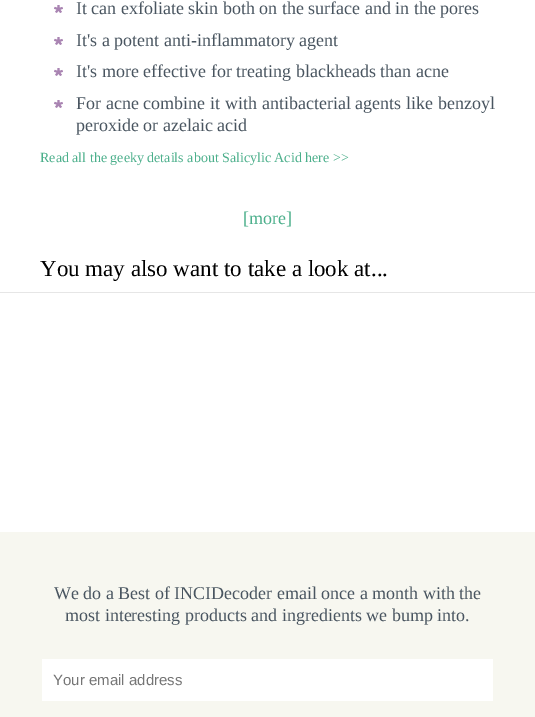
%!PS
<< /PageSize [535 717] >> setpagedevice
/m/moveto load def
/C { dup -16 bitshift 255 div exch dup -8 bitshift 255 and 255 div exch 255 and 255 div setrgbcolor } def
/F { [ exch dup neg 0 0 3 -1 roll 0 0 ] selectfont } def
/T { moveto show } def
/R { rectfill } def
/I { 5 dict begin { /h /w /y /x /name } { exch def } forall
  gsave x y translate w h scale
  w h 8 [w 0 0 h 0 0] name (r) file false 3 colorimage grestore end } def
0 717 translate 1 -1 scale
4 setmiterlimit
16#FFFFFF C
0 0 535 717 R
(1.rgb) 54 5 9 8 I
/LiberationSerif-Regular 18 F
16#495560 C
(It can exfoliate skin both on the surface and in the pores) 76 14 T
(1.rgb) 54 37 9 8 I
(It's a potent anti-inflammatory agent) 76 46 T
(1.rgb) 54 68 9 8 I
(It's more effective for treating blackheads than acne) 76 77 T
(1.rgb) 54 100 9 8 I
76 109 m .25 0 32 (For acne combine it with antibacterial agents like benzoyl) widthshow
(peroxide or azelaic acid) 76 131 T
/LiberationSerif-Regular 14 F
16#4BAF8B C
(Read all the geeky details about Salicylic Acid here >>) 40 162 T
/LiberationSerif-Regular 18 F
([more]) 243 224 T
16#E6E6E6 C
0 292 535 1 R
/LiberationSerif-Regular 23 F
16#000000 C
(You may also want to take a look at...) 40 276 T
16#F7F7F0 C
0 532 535 185 R
/LiberationSerif-Regular 18 F
16#495560 C
(We do a Best of INCIDecoder email once a month with the) 54 599 T
(most interesting products and ingredients we bump into.) 65 621 T
16#FFFFFF C
42 659 451 42 R
/LiberationSans-Regular 15 F
16#757575 C
(Your email address) 53 685 T
showpage
